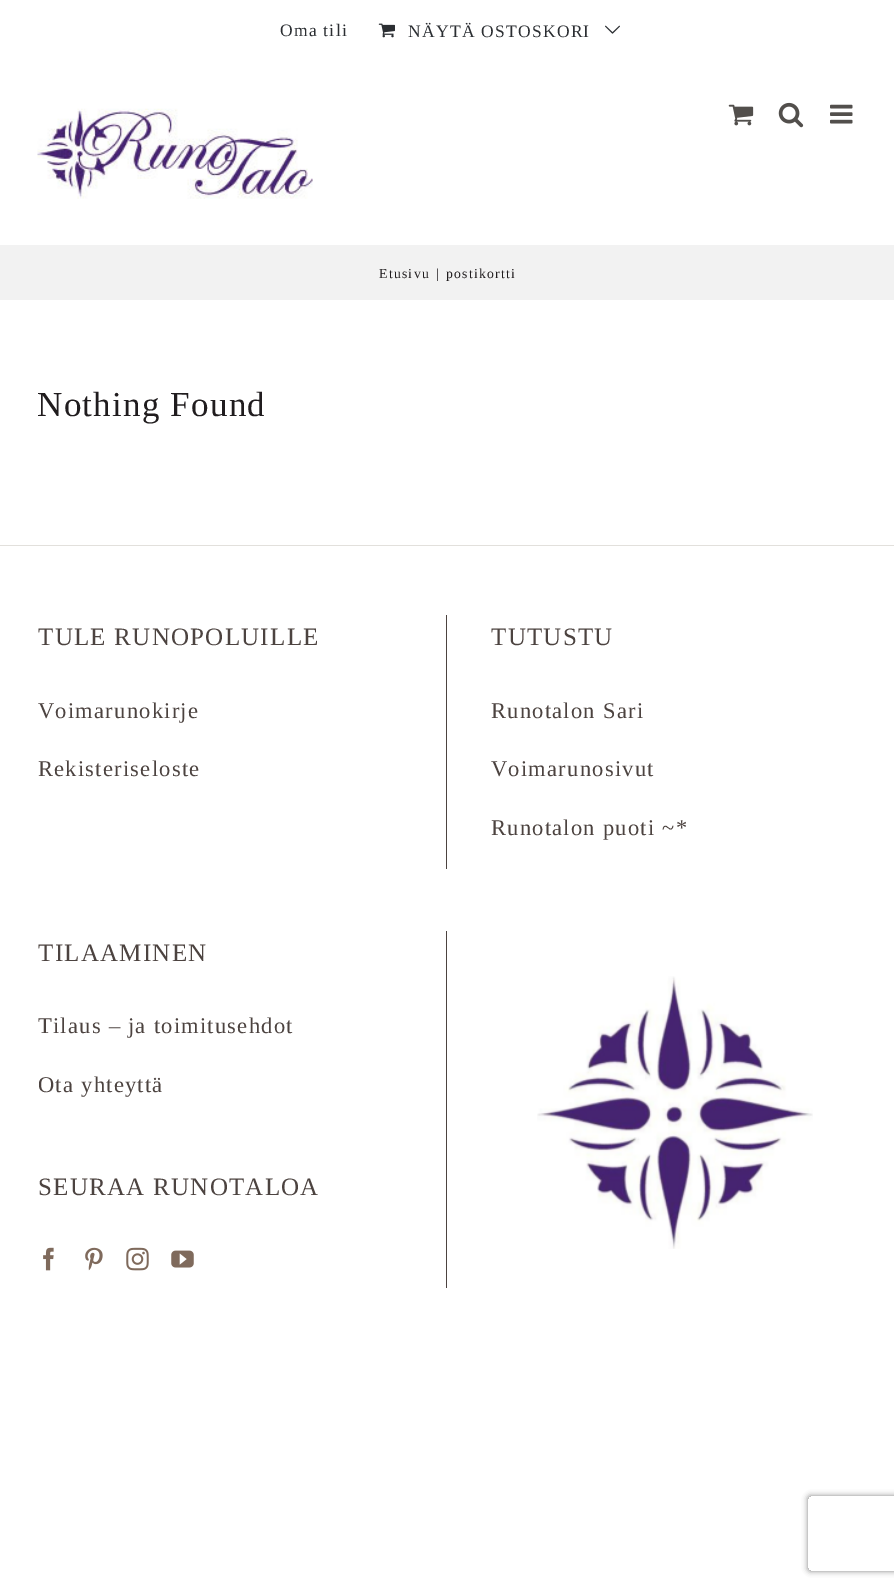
%!PS
<< /PageSize [894 1588] /PageUsesTransparency true >> setpagedevice
/m/moveto load def
/l/rlineto load def
/c/rcurveto load def
/z/closepath load def
/q/gsave load def
/Q_/grestore load def
/C { dup -16 bitshift 255 div exch dup -8 bitshift 255 and 255 div exch 255 and 255 div setrgbcolor } def
/F { [ exch dup neg 0 0 3 -1 roll 0 0 ] selectfont } def
/R { rectfill } def
/A { dup .setfillconstantalpha .setstrokeconstantalpha } def
/Q { 5 dict begin { /r /h /w /y /x } { exch def } forall
  x r add y moveto x w add y 2 copy h add r arct x w add y h add x 1 index r arct
  x y h add x y r arct x y 2 copy exch w add exch r arct closepath end } def
/S { 12 dict begin { /a /b /q /h /w /y /x } { exch def } forall gsave /was 0 def
  9 -2 -9 { dup b mul 4 div /e exch def 1 sub .425 mul 2.718 exch exp 1 add a .99 .min exch div /now exch def
    1 1 now sub 1 was sub div sub A /was now def
    w h .min e 2 mul add 0 gt { x e sub y e sub w e 2 mul add h e 2 mul add
      q e add b .6 mul add w h .min 2 div e add .min 0 .max Q fill } if } for grestore end } def
/I { 5 dict begin { /h /w /y /x /name } { exch def } forall
  gsave x y translate w h scale
  w h 8 [w 0 0 h 0 0] name (r) file false 3 colorimage grestore end } def
0 .pushpdf14devicefilter
0 1588 translate 1 -1 scale
4 setmiterlimit
16#FFFFFF C
0 0 894 1588 R
/LiberationSerif-Regular 17.5 F
16#2B2E32 C
280 36 m 1.25 0 (Oma tili) ashow
(1.rgb) 378 23 17 15 I
408 37 m 1.25 0 (NÄYTÄ OSTOSKORI) ashow
(2.rgb) 605 25 15 9 I
(3.rgb) 37 108 276 91 I
(4.rgb) 728 104 26 22 I
(5.rgb) 778 102 26 26 I
(6.rgb) 830 104 23 20 I
16#F2F2F2 C
0 245 894 55 R
/LiberationSerif-Regular 13.75 F
16#201C1E C
379 278 m 1.25 0 (Etusivu) ashow
436 278 m 1.25 0 (|) ashow
446 278 m 1.25 0 (postikortti) ashow
/LiberationSerif-Regular 35 F
37 416 m 1.25 0 (Nothing Found) ashow
16#E2E0DC C
0 545 894 1 R
16#4C4340 C
446 615 1 254 R
/LiberationSerif-Regular 25 F
38 645 m 1.25 0 (TULE RUNOPOLUILLE) ashow
/LiberationSerif-Regular 22.5 F
38 718 m 1.25 0 (Voimarunokirje) ashow
38 776 m 1.25 0 (Rekisteriseloste) ashow
/LiberationSerif-Regular 25 F
491 645 m 1.25 0 (TUTUSTU) ashow
/LiberationSerif-Regular 22.5 F
491 718 m 1.25 0 (Runotalon Sari) ashow
491 776 m 1.25 0 (Voimarunosivut) ashow
491 835 m 1.25 0 (Runotalon puoti ~*) ashow
446 931 1 357 R
/LiberationSerif-Regular 25 F
38 961 m 1.25 0 (TILAAMINEN) ashow
/LiberationSerif-Regular 22.5 F
38 1033 m 1.25 0 (Tilaus – ja toimitusehdot) ashow
38 1092 m 1.25 0 (Ota yhteyttä) ashow
/LiberationSerif-Regular 25 F
38 1195 m 1.25 0 (SEURAA RUNOTALOA) ashow
(7.rgb) 43 1247 11 24 I
(8.rgb) 85 1247 18 24 I
(9.rgb) 126 1247 23 24 I
(10.rgb) 171 1250 23 18 I
(11.rgb) 537 976 276 273 I
q
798 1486 m 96 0 l 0 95 l -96 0 l z 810.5 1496 m 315 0 l 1.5 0 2.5 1 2.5 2.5 c 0 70 l 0 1.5 -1 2.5 -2.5 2.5 c -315 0 l -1.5 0 -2.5 -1 -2.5 -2.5 c 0 -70 l 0 -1.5 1 -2.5 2.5 -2.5 c z eoclip newpath
16#808080 C
808 1496 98 75 2.5 3 1 S
Q_
.poppdf14devicefilter showpage
